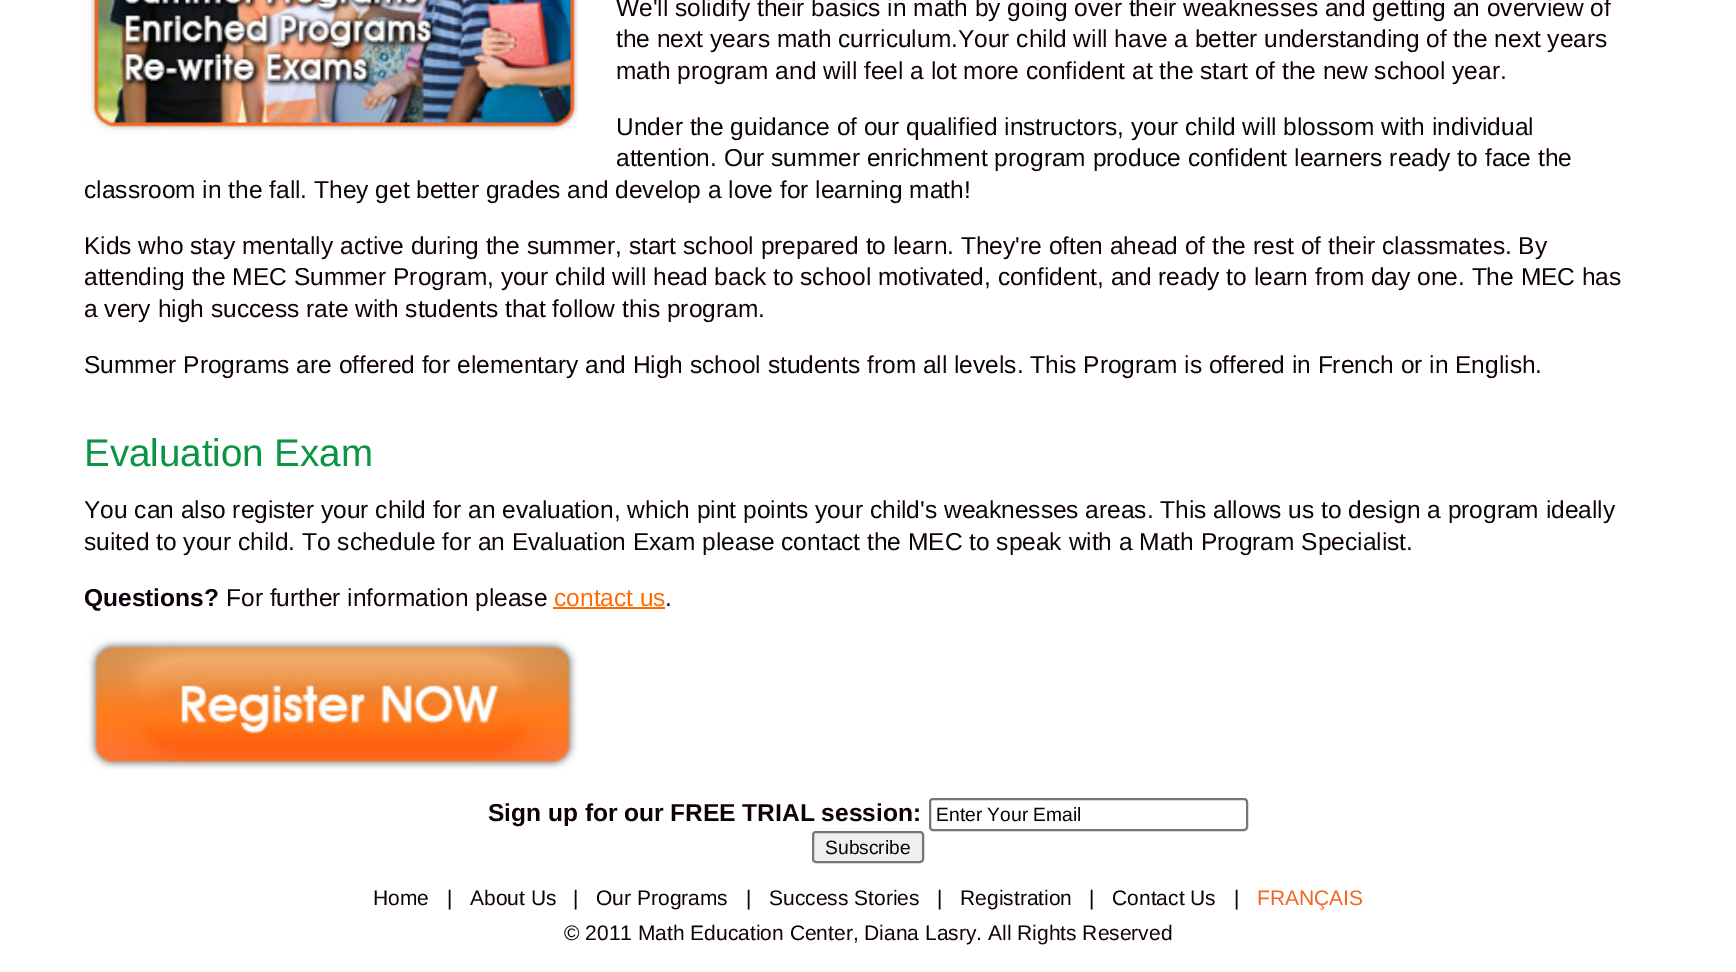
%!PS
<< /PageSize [1736 972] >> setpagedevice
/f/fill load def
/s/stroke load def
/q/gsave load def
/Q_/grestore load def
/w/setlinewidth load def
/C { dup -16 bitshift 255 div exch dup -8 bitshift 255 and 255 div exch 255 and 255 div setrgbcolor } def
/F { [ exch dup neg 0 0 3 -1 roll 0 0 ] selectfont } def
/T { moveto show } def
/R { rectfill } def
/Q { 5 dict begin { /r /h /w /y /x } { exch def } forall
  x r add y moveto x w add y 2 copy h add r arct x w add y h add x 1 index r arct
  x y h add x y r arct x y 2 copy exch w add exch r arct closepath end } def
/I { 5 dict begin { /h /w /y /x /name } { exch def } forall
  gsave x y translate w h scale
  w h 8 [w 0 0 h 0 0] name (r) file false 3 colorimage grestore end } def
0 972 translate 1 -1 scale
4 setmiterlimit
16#FFFFFF C
0 0 1736 972 R
(1.rgb) 84 0 495 135 I
/LiberationSans-Regular 24.5 F
16#0F010C C
(We'll solidify their basics in math by going over their weaknesses and getting an overview of) 616 16 T
(the next years math curriculum.Your child will have a better understanding of the next years) 616 47 T
(math program and will feel a lot more confident at the start of the new school year.) 616 79 T
(Under the guidance of our qualified instructors, your child will blossom with individual) 616 135 T
(attention. Our summer enrichment program produce confident learners ready to face the) 616 166 T
(classroom in the fall. They get better grades and develop a love for learning math!) 84 198 T
(Kids who stay mentally active during the summer, start school prepared to learn. They're often ahead of the rest of their classmates. By) 84 254 T
(attending the MEC Summer Program, your child will head back to school motivated, confident, and ready to learn from day one. The MEC has) 84 285 T
(a very high success rate with students that follow this program.) 84 317 T
(Summer Programs are offered for elementary and High school students from all levels. This Program is offered in French or in English.) 84 373 T
/LiberationSans-Regular 38.5 F
16#0B9444 C
(Evaluation Exam) 84 466 T
/LiberationSans-Regular 24.5 F
16#0F010C C
(You can also register your child for an evaluation, which pint points your child's weaknesses areas. This allows us to design a program ideally) 84 518 T
(suited to your child. To schedule for an Evaluation Exam please contact the MEC to speak with a Math Program Specialist.) 84 550 T
/LiberationSans-Bold 24.5 F
(Questions?) 84 606 T
/LiberationSans-Regular 24.5 F
(For further information please) 226 606 T
16#FF6A03 C
(contact us) 554 606 T
553 607 112 2 R
16#0F010C C
(.) 665 606 T
(2.rgb) 84 637 493 133 I
/LiberationSans-Bold 24.5 F
(Sign up for our FREE TRIAL session:) 488 821 T
16#767676 C
2 w
930 799 317 31 3 Q s
/LiberationSans-Regular 19.25 F
16#0F010C C
(Enter Your Email) 936 821 T
16#EFEFEF C
813 832 110 30 3 Q q f Q_
16#767676 C
s
16#0F010C C
(Subscribe) 825 854 T
/LiberationSans-Regular 21 F
(Home) 373 905 T
(|) 447 905 T
(About Us) 470 905 T
(|) 573 905 T
(Our Programs) 596 905 T
(|) 746 905 T
(Success Stories) 769 905 T
(|) 937 905 T
(Registration) 960 905 T
(|) 1089 905 T
(Contact Us) 1112 905 T
(|) 1234 905 T
16#F16623 C
(FRANÇAIS) 1257 905 T
16#0F010C C
(© 2011 Math Education Center, Diana Lasry. All Rights Reserved) 564 940 T
showpage
